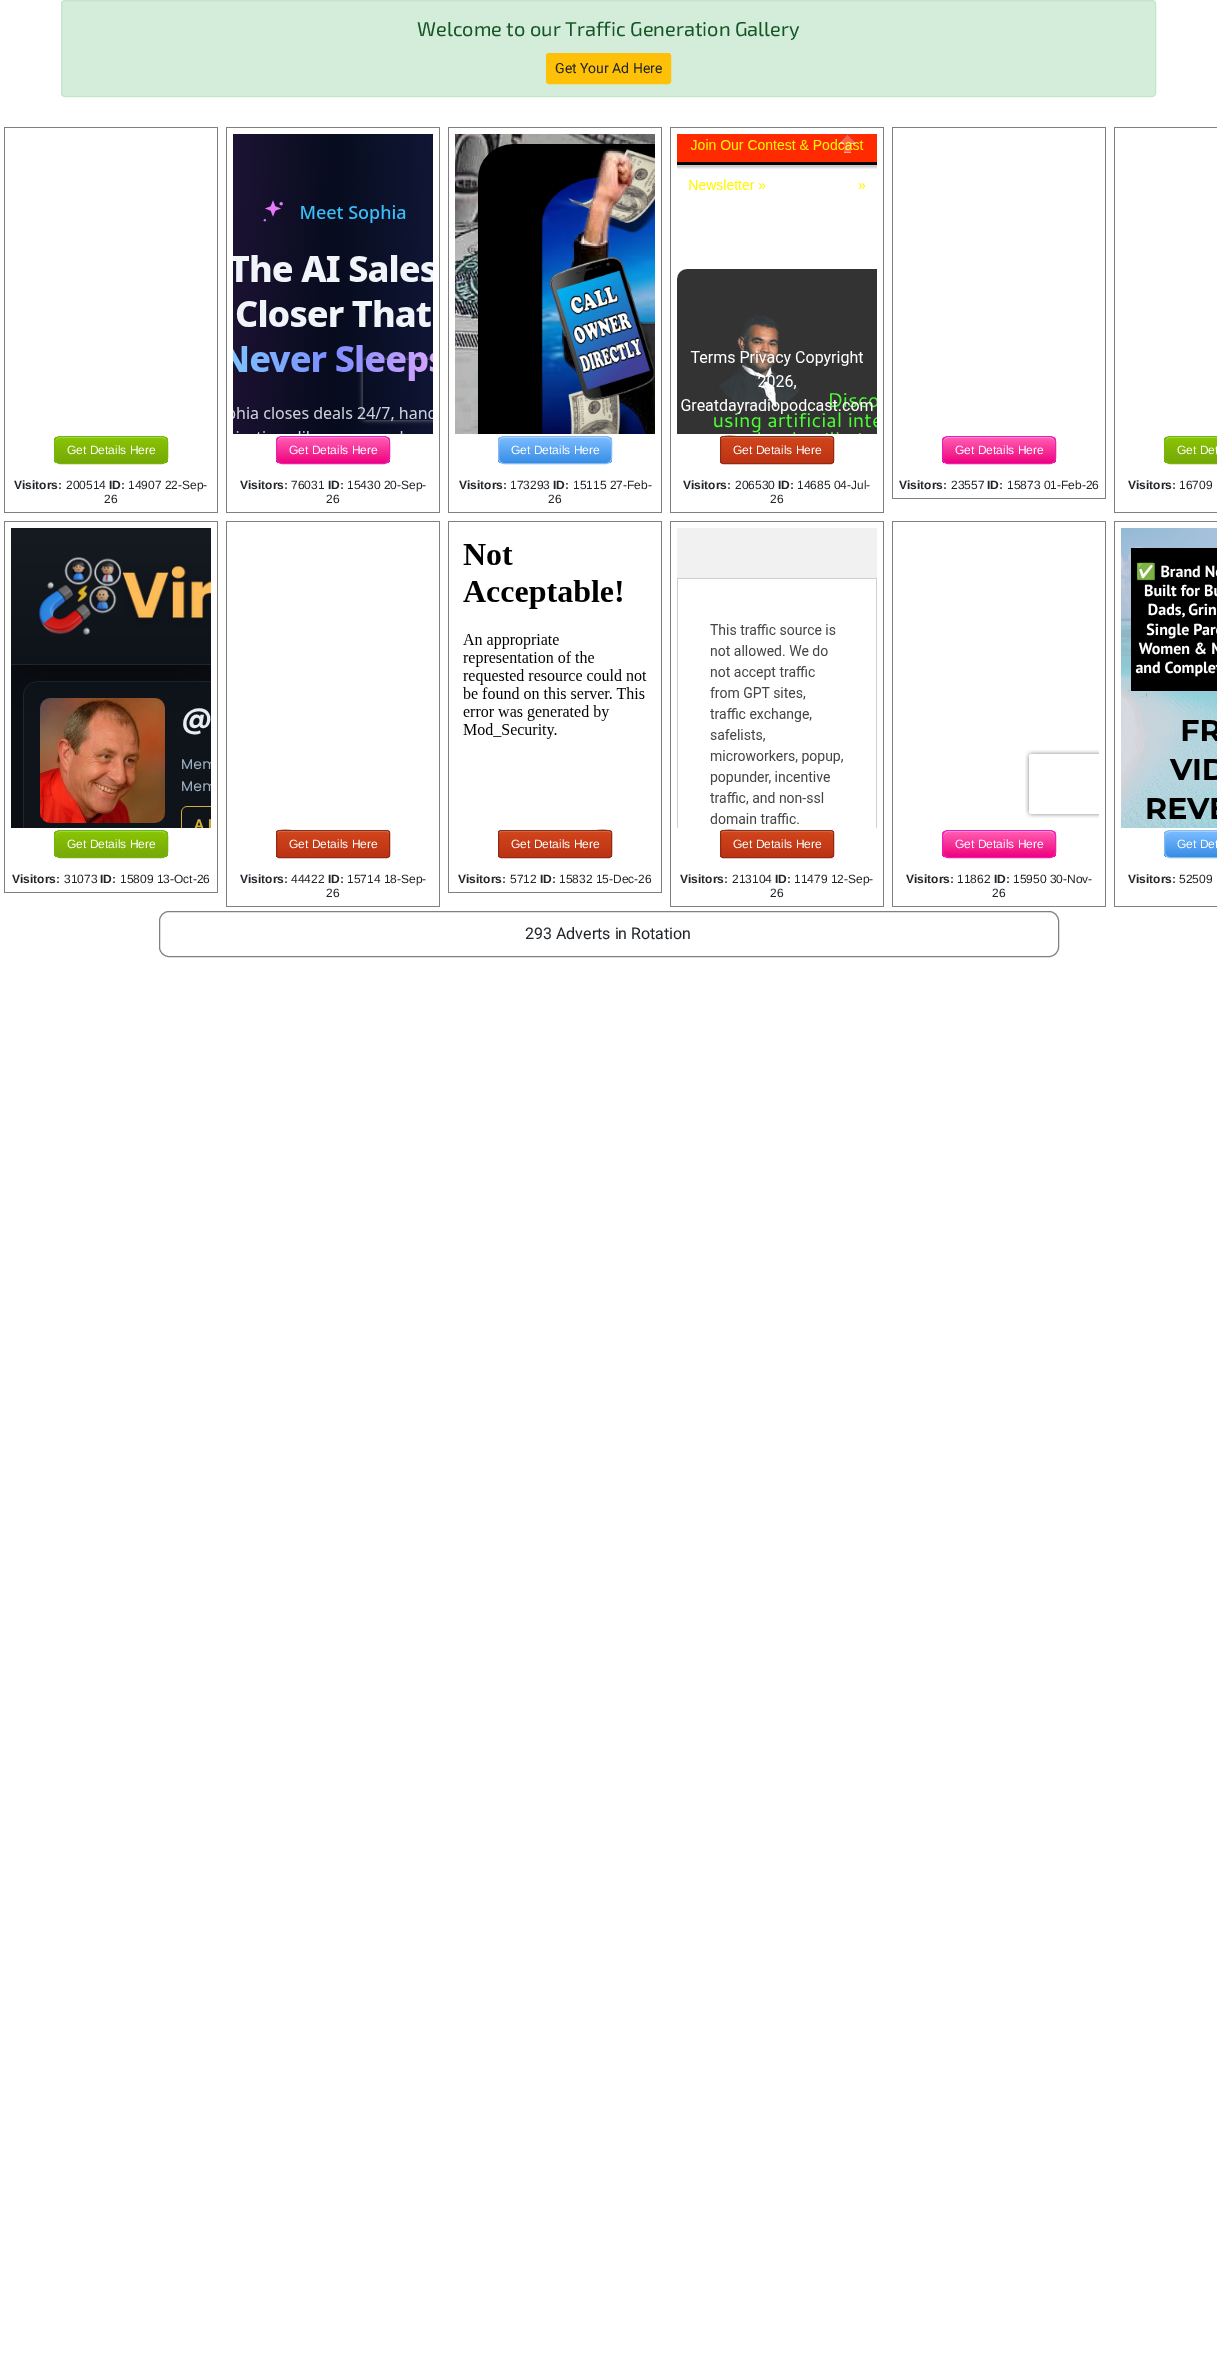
%!PS
<< /PageSize [1217 2377] >> setpagedevice
/m/moveto load def
/l/rlineto load def
/c/rcurveto load def
/z/closepath load def
/f/fill load def
/s/stroke load def
/q/gsave load def
/Q_/grestore load def
/C { dup -16 bitshift 255 div exch dup -8 bitshift 255 and 255 div exch 255 and 255 div setrgbcolor } def
/F { [ exch dup neg 0 0 3 -1 roll 0 0 ] selectfont } def
/T { moveto show } def
/R { rectfill } def
/Q { 5 dict begin { /r /h /w /y /x } { exch def } forall
  x r add y moveto x w add y 2 copy h add r arct x w add y h add x 1 index r arct
  x y h add x y r arct x y 2 copy exch w add exch r arct closepath end } def
/I { 5 dict begin { /h /w /y /x /name } { exch def } forall
  gsave x y translate w h scale
  w h 8 [w 0 0 h 0 0] name (r) file false 3 colorimage grestore end } def
0 2377 translate 1 -1 scale
4 setmiterlimit
16#FFFFFF C
0 0 1217 2377 R
16#D4EDDA C
61.5 .5 1094 96 3.5 Q q f Q_
16#C3E6CB C
s
/Exo2-Regular 20 F
16#155724 C
(Welcome to our Traffic Generation Gallery) 417 36 T
16#FFC107 C
546.5 53.5 124 30 2.5 Q q f Q_
s
/Roboto-Regular 14 F
16#212529 C
(Get Your Ad Here) 555 73 T
16#808080 C
4 127 214 1 R
217 127 1 386 R
4 512 214 1 R
4 127 1 386 R
q
54 436 114 28 6 Q clip newpath
q 54 437 m 114 0 l 0 26 l -114 0 l z clip newpath
<< /ShadingType 2 /ColorSpace /DeviceRGB /Coords [111 437 111 463] /Extend [true true] /Function << /FunctionType 3 /Domain [0 1] /Functions [<< /FunctionType 2 /Domain [0 1] /C0 [.537 .769 .012] /C1 [.537 .769 .012] /N 1 >> << /FunctionType 2 /Domain [0 1] /C0 [.537 .769 .012] /C1 [.467 .659 .035] /N 1 >>] /Bounds [.05] /Encode [0 1 0 1] >> >> shfill Q_
Q_
16#A4E271 C
60 438 m 102 0 l 3 0 5 2 5 5 c 0 -10 -17 -6 -22 -6 c -68 0 l -5 0 -22 -4 -22 6 c 0 -3 2 -5 5 -5 c z f
16#74B807 C
54.5 436.5 113 27 5.5 Q s
/LiberationSans-Regular 12 F
16#FFFFFF C
(Get Details Here) 67 454 T
/LiberationSans-Bold 12 F
16#212529 C
(Visitors:) 14 489 T
/LiberationSans-Regular 12 F
(200514) 66 489 T
/LiberationSans-Bold 12 F
(ID:) 109 489 T
/LiberationSans-Regular 12 F
(14907 22-Sep-) 128 489 T
(26) 104 503 T
16#808080 C
226 127 214 1 R
439 127 1 386 R
226 512 214 1 R
226 127 1 386 R
(1.rgb) 233 134 200 300 I
q
276 436 114 28 6 Q clip newpath
q 276 437 m 114 0 l 0 26 l -114 0 l z clip newpath
<< /ShadingType 2 /ColorSpace /DeviceRGB /Coords [333 437 333 463] /Extend [true true] /Function << /FunctionType 3 /Domain [0 1] /Functions [<< /FunctionType 2 /Domain [0 1] /C0 [1 .357 .69] /C1 [1 .357 .69] /N 1 >> << /FunctionType 2 /Domain [0 1] /C0 [1 .357 .69] /C1 [.937 .008 .49] /N 1 >>] /Bounds [.05] /Encode [0 1 0 1] >> >> shfill Q_
Q_
16#FBAFE3 C
282 438 m 102 0 l 3 0 5 2 5 5 c 0 -10 -17 -6 -22 -6 c -68 0 l -5 0 -22 -4 -22 6 c 0 -3 2 -5 5 -5 c z f
16#EE1EB5 C
276.5 436.5 113 27 5.5 Q s
16#FFFFFF C
(Get Details Here) 289 454 T
/LiberationSans-Bold 12 F
16#212529 C
(Visitors:) 240 489 T
/LiberationSans-Regular 12 F
(76031) 291 489 T
/LiberationSans-Bold 12 F
(ID:) 328 489 T
/LiberationSans-Regular 12 F
(15430 20-Sep-) 347 489 T
(26) 326 503 T
16#808080 C
448 127 214 1 R
661 127 1 386 R
448 512 214 1 R
448 127 1 386 R
(2.rgb) 455 134 200 300 I
q
498 436 114 28 6 Q clip newpath
q 498 437 m 114 0 l 0 26 l -114 0 l z clip newpath
<< /ShadingType 2 /ColorSpace /DeviceRGB /Coords [555 437 555 463] /Extend [true true] /Function << /FunctionType 3 /Domain [0 1] /Functions [<< /FunctionType 2 /Domain [0 1] /C0 [.475 .733 1] /C1 [.475 .733 1] /N 1 >> << /FunctionType 2 /Domain [0 1] /C0 [.475 .733 1] /C1 [.216 .553 .898] /N 1 >>] /Bounds [.05] /Encode [0 1 0 1] >> >> shfill Q_
Q_
16#BBDAF7 C
504 438 m 102 0 l 3 0 5 2 5 5 c 0 -10 -17 -6 -22 -6 c -68 0 l -5 0 -22 -4 -22 6 c 0 -3 2 -5 5 -5 c z f
16#84BBF3 C
498.5 436.5 113 27 5.5 Q s
16#FFFFFF C
(Get Details Here) 511 454 T
/LiberationSans-Bold 12 F
16#212529 C
(Visitors:) 459 489 T
/LiberationSans-Regular 12 F
(173293) 510 489 T
/LiberationSans-Bold 12 F
(ID:) 553 489 T
/LiberationSans-Regular 12 F
(15115 27-Feb-) 573 489 T
(26) 548 503 T
16#808080 C
670 127 214 1 R
883 127 1 386 R
670 512 214 1 R
670 127 1 386 R
(3.rgb) 677 134 200 300 I
q
720 436 114 28 3 Q clip newpath
q 720 437 m 114 0 l 0 26 l -114 0 l z clip newpath
<< /ShadingType 2 /ColorSpace /DeviceRGB /Coords [777 437 777 463] /Extend [true true] /Function << /FunctionType 3 /Domain [0 1] /Functions [<< /FunctionType 2 /Domain [0 1] /C0 [.816 .271 .106] /C1 [.816 .271 .106] /N 1 >> << /FunctionType 2 /Domain [0 1] /C0 [.816 .271 .106] /C1 [.737 .2 .082] /N 1 >>] /Bounds [.05] /Encode [0 1 0 1] >> >> shfill Q_
Q_
16#CF866C C
723 438 m 108 0 l 1 0 2 1 2 2 c 0 -1 0 -3 -2 -3 c -90 0 l 0 0 -20 -5 -20 3 c 0 -1 1 -2 2 -2 c z f
16#942911 C
720.5 436.5 113 27 2.5 Q s
16#FFFFFF C
(Get Details Here) 733 454 T
/LiberationSans-Bold 12 F
16#212529 C
(Visitors:) 683 489 T
/LiberationSans-Regular 12 F
(206530) 735 489 T
/LiberationSans-Bold 12 F
(ID:) 778 489 T
/LiberationSans-Regular 12 F
(14685 04-Jul-) 797 489 T
(26) 770 503 T
16#808080 C
892 127 214 1 R
1105 127 1 372 R
892 498 214 1 R
892 127 1 372 R
q
942 436 114 28 6 Q clip newpath
q 942 437 m 114 0 l 0 26 l -114 0 l z clip newpath
<< /ShadingType 2 /ColorSpace /DeviceRGB /Coords [999 437 999 463] /Extend [true true] /Function << /FunctionType 3 /Domain [0 1] /Functions [<< /FunctionType 2 /Domain [0 1] /C0 [1 .357 .69] /C1 [1 .357 .69] /N 1 >> << /FunctionType 2 /Domain [0 1] /C0 [1 .357 .69] /C1 [.937 .008 .49] /N 1 >>] /Bounds [.05] /Encode [0 1 0 1] >> >> shfill Q_
Q_
16#FBAFE3 C
948 438 m 102 0 l 3 0 5 2 5 5 c 0 -10 -17 -6 -22 -6 c -68 0 l -5 0 -22 -4 -22 6 c 0 -3 2 -5 5 -5 c z f
16#EE1EB5 C
942.5 436.5 113 27 5.5 Q s
16#FFFFFF C
(Get Details Here) 955 454 T
/LiberationSans-Bold 12 F
16#212529 C
(Visitors:) 899 489 T
/LiberationSans-Regular 12 F
(23557) 951 489 T
/LiberationSans-Bold 12 F
(ID:) 987 489 T
/LiberationSans-Regular 12 F
(15873 01-Feb-26) 1007 489 T
16#808080 C
1114 127 103 1 R
1114 512 103 1 R
1114 127 1 386 R
q
1164 436 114 28 6 Q clip newpath
q 1164 437 m 53 0 l 0 26 l -53 0 l z clip newpath
<< /ShadingType 2 /ColorSpace /DeviceRGB /Coords [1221 437 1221 463] /Extend [true true] /Function << /FunctionType 3 /Domain [0 1] /Functions [<< /FunctionType 2 /Domain [0 1] /C0 [.537 .769 .012] /C1 [.537 .769 .012] /N 1 >> << /FunctionType 2 /Domain [0 1] /C0 [.537 .769 .012] /C1 [.467 .659 .035] /N 1 >>] /Bounds [.05] /Encode [0 1 0 1] >> >> shfill Q_
Q_
16#A4E271 C
1170 438 m 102 0 l 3 0 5 2 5 5 c 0 -10 -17 -6 -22 -6 c -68 0 l -5 0 -22 -4 -22 6 c 0 -3 2 -5 5 -5 c z f
16#74B807 C
1164.5 436.5 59 27 5.5 Q s
16#FFFFFF C
(Get Det) 1177 454 T
/LiberationSans-Bold 12 F
16#212529 C
(Visitors:) 1128 489 T
/LiberationSans-Regular 12 F
(16709) 1179 489 T
16#808080 C
4 521 214 1 R
217 521 1 372 R
4 892 214 1 R
4 521 1 372 R
(4.rgb) 11 528 200 300 I
q
54 830 114 28 6 Q clip newpath
q 54 831 m 114 0 l 0 26 l -114 0 l z clip newpath
<< /ShadingType 2 /ColorSpace /DeviceRGB /Coords [111 831 111 857] /Extend [true true] /Function << /FunctionType 3 /Domain [0 1] /Functions [<< /FunctionType 2 /Domain [0 1] /C0 [.537 .769 .012] /C1 [.537 .769 .012] /N 1 >> << /FunctionType 2 /Domain [0 1] /C0 [.537 .769 .012] /C1 [.467 .659 .035] /N 1 >>] /Bounds [.05] /Encode [0 1 0 1] >> >> shfill Q_
Q_
16#A4E271 C
60 832 m 102 0 l 3 0 5 2 5 5 c 0 -10 -17 -6 -22 -6 c -68 0 l -5 0 -22 -4 -22 6 c 0 -3 2 -5 5 -5 c z f
16#74B807 C
54.5 830.5 113 27 5.5 Q s
16#FFFFFF C
(Get Details Here) 67 848 T
/LiberationSans-Bold 12 F
16#212529 C
(Visitors:) 12 883 T
/LiberationSans-Regular 12 F
(31073) 64 883 T
/LiberationSans-Bold 12 F
(ID:) 100 883 T
/LiberationSans-Regular 12 F
(15809 13-Oct-26) 120 883 T
16#808080 C
226 521 214 1 R
439 521 1 386 R
226 906 214 1 R
226 521 1 386 R
q
276 830 114 28 3 Q clip newpath
q 276 831 m 114 0 l 0 26 l -114 0 l z clip newpath
<< /ShadingType 2 /ColorSpace /DeviceRGB /Coords [333 831 333 857] /Extend [true true] /Function << /FunctionType 3 /Domain [0 1] /Functions [<< /FunctionType 2 /Domain [0 1] /C0 [.816 .271 .106] /C1 [.816 .271 .106] /N 1 >> << /FunctionType 2 /Domain [0 1] /C0 [.816 .271 .106] /C1 [.737 .2 .082] /N 1 >>] /Bounds [.05] /Encode [0 1 0 1] >> >> shfill Q_
Q_
16#CF866C C
279 832 m 108 0 l 1 0 2 1 2 2 c 0 -1 0 -3 -2 -3 c -90 0 l 0 0 -20 -5 -20 3 c 0 -1 1 -2 2 -2 c z f
16#942911 C
276.5 830.5 113 27 2.5 Q s
16#FFFFFF C
(Get Details Here) 289 848 T
/LiberationSans-Bold 12 F
16#212529 C
(Visitors:) 240 883 T
/LiberationSans-Regular 12 F
(44422) 291 883 T
/LiberationSans-Bold 12 F
(ID:) 328 883 T
/LiberationSans-Regular 12 F
(15714 18-Sep-) 347 883 T
(26) 326 897 T
16#808080 C
448 521 214 1 R
661 521 1 372 R
448 892 214 1 R
448 521 1 372 R
(5.rgb) 463 544 184 195 I
q
498 830 114 28 3 Q clip newpath
q 498 831 m 114 0 l 0 26 l -114 0 l z clip newpath
<< /ShadingType 2 /ColorSpace /DeviceRGB /Coords [555 831 555 857] /Extend [true true] /Function << /FunctionType 3 /Domain [0 1] /Functions [<< /FunctionType 2 /Domain [0 1] /C0 [.816 .271 .106] /C1 [.816 .271 .106] /N 1 >> << /FunctionType 2 /Domain [0 1] /C0 [.816 .271 .106] /C1 [.737 .2 .082] /N 1 >>] /Bounds [.05] /Encode [0 1 0 1] >> >> shfill Q_
Q_
16#CF866C C
501 832 m 108 0 l 1 0 2 1 2 2 c 0 -8 -20 -3 -20 -3 c -90 0 l -2 0 -2 2 -2 3 c 0 -1 1 -2 2 -2 c z f
16#942911 C
498.5 830.5 113 27 2.5 Q s
16#FFFFFF C
(Get Details Here) 511 848 T
/LiberationSans-Bold 12 F
16#212529 C
(Visitors:) 458 883 T
/LiberationSans-Regular 12 F
(5712) 510 883 T
/LiberationSans-Bold 12 F
(ID:) 540 883 T
/LiberationSans-Regular 12 F
(15832 15-Dec-26) 559 883 T
16#808080 C
670 521 214 1 R
883 521 1 386 R
670 906 214 1 R
670 521 1 386 R
(6.rgb) 677 528 200 300 I
q
720 830 114 28 3 Q clip newpath
q 720 831 m 114 0 l 0 26 l -114 0 l z clip newpath
<< /ShadingType 2 /ColorSpace /DeviceRGB /Coords [777 831 777 857] /Extend [true true] /Function << /FunctionType 3 /Domain [0 1] /Functions [<< /FunctionType 2 /Domain [0 1] /C0 [.816 .271 .106] /C1 [.816 .271 .106] /N 1 >> << /FunctionType 2 /Domain [0 1] /C0 [.816 .271 .106] /C1 [.737 .2 .082] /N 1 >>] /Bounds [.05] /Encode [0 1 0 1] >> >> shfill Q_
Q_
16#CF866C C
723 832 m 108 0 l 1 0 2 1 2 2 c 0 -1 0 -3 -2 -3 c -90 0 l 0 0 -20 -5 -20 3 c 0 -1 1 -2 2 -2 c z f
16#942911 C
720.5 830.5 113 27 2.5 Q s
16#FFFFFF C
(Get Details Here) 733 848 T
/LiberationSans-Bold 12 F
16#212529 C
(Visitors:) 680 883 T
/LiberationSans-Regular 12 F
(213104) 732 883 T
/LiberationSans-Bold 12 F
(ID:) 775 883 T
/LiberationSans-Regular 12 F
(11479 12-Sep-) 794 883 T
(26) 770 897 T
16#808080 C
892 521 214 1 R
1105 521 1 386 R
892 906 214 1 R
892 521 1 386 R
(7.rgb) 1025 750 74 68 I
q
942 830 114 28 6 Q clip newpath
q 942 831 m 114 0 l 0 26 l -114 0 l z clip newpath
<< /ShadingType 2 /ColorSpace /DeviceRGB /Coords [999 831 999 857] /Extend [true true] /Function << /FunctionType 3 /Domain [0 1] /Functions [<< /FunctionType 2 /Domain [0 1] /C0 [1 .357 .69] /C1 [1 .357 .69] /N 1 >> << /FunctionType 2 /Domain [0 1] /C0 [1 .357 .69] /C1 [.937 .008 .49] /N 1 >>] /Bounds [.05] /Encode [0 1 0 1] >> >> shfill Q_
Q_
16#FBAFE3 C
948 832 m 102 0 l 3 0 5 2 5 5 c 0 -10 -17 -6 -22 -6 c -68 0 l -5 0 -22 -4 -22 6 c 0 -3 2 -5 5 -5 c z f
16#EE1EB5 C
942.5 830.5 113 27 5.5 Q s
16#FFFFFF C
(Get Details Here) 955 848 T
/LiberationSans-Bold 12 F
16#212529 C
(Visitors:) 906 883 T
/LiberationSans-Regular 12 F
(11862) 957 883 T
/LiberationSans-Bold 12 F
(ID:) 994 883 T
/LiberationSans-Regular 12 F
(15950 30-Nov-) 1013 883 T
(26) 992 897 T
16#808080 C
1114 521 103 1 R
1114 906 103 1 R
1114 521 1 386 R
(8.rgb) 1121 528 96 300 I
q
1164 830 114 28 6 Q clip newpath
q 1164 831 m 53 0 l 0 26 l -53 0 l z clip newpath
<< /ShadingType 2 /ColorSpace /DeviceRGB /Coords [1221 831 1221 857] /Extend [true true] /Function << /FunctionType 3 /Domain [0 1] /Functions [<< /FunctionType 2 /Domain [0 1] /C0 [.475 .733 1] /C1 [.475 .733 1] /N 1 >> << /FunctionType 2 /Domain [0 1] /C0 [.475 .733 1] /C1 [.216 .553 .898] /N 1 >>] /Bounds [.05] /Encode [0 1 0 1] >> >> shfill Q_
Q_
16#BBDAF7 C
1170 832 m 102 0 l 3 0 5 2 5 5 c 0 -10 -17 -6 -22 -6 c -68 0 l -5 0 -22 -4 -22 6 c 0 -3 2 -5 5 -5 c z f
16#84BBF3 C
1164.5 830.5 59 27 5.5 Q s
16#FFFFFF C
(Get Det) 1177 848 T
/LiberationSans-Bold 12 F
16#212529 C
(Visitors:) 1128 883 T
/LiberationSans-Regular 12 F
(52509) 1179 883 T
16#808080 C
159.5 911.5 899 45 9.5 Q s
/Roboto-Regular 16 F
16#212529 C
(293 Adverts in Rotation) 525 939 T
showpage
